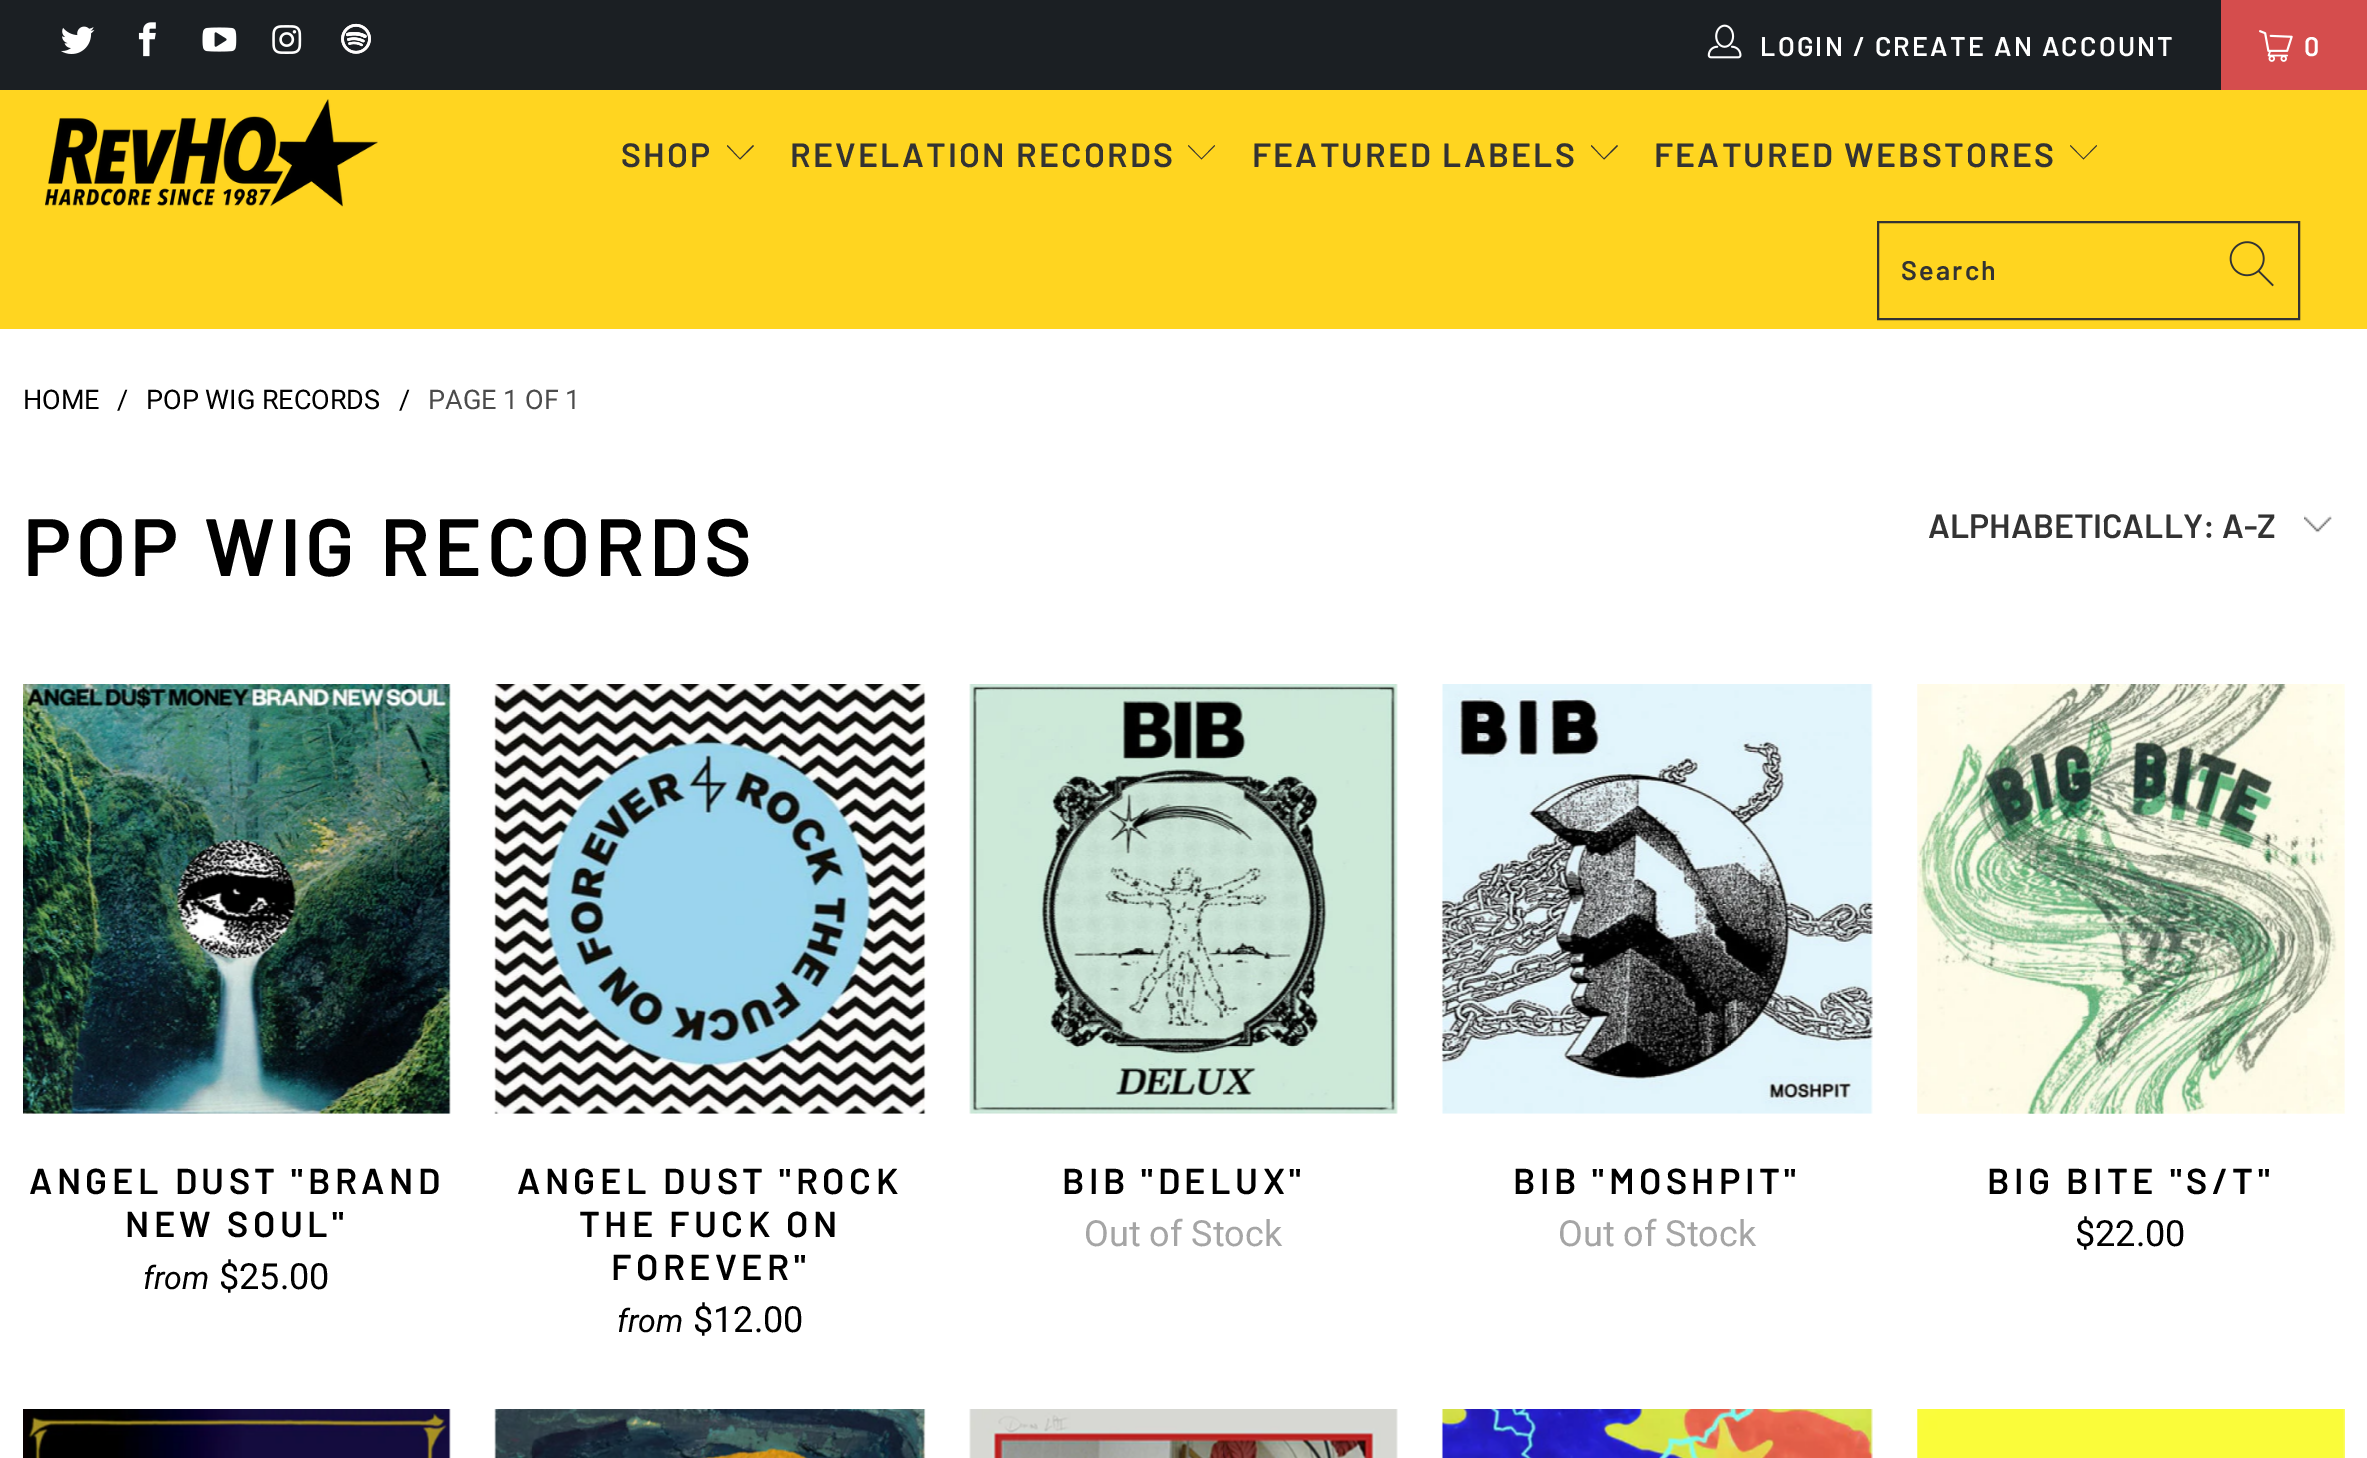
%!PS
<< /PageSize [2367 1458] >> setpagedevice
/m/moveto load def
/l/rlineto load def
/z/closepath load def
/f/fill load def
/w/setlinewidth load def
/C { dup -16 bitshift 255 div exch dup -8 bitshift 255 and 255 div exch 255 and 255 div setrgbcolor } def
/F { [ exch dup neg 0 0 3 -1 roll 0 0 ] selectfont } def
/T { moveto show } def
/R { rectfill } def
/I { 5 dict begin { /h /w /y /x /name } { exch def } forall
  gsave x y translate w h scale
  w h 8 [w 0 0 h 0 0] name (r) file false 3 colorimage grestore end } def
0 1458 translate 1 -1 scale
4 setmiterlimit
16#FFFFFF C
0 0 2367 1458 R
16#1B1F23 C
0 0 2221 90 R
(1.rgb) 61 26 34 28 I
(2.rgb) 138 22 18 35 I
(3.rgb) 202 27 35 25 I
(4.rgb) 272 25 30 29 I
(5.rgb) 341 23 30 31 I
(6.rgb) 1707 24 35 35 I
/Barlow-SemiBold 27 F
16#FFFFFF C
1760 56 m 2.25 0 (LOGIN / CREATE AN ACCOUNT) ashow
16#D54D4D C
2221 0 146 90 R
(7.rgb) 2259 30 34 32 I
16#FFFFFF C
2304 56 m 2.25 0 (0) ashow
16#FFD520 C
0 90 2367 239 R
(8.rgb) 45 99 333 108 I
/Barlow-SemiBold 33.75 F
16#333333 C
621 167 m 2.25 0 (SHOP) ashow
740 159.5 m -13 -13.5 l .5 -1 l 12.5 13.5 l 13 -13.5 l 1 1 l z f
790 167 m 2.25 0 (REVELATION RECORDS) ashow
1201.5 159.5 m -13.5 -13.5 l .5 -1 l 13 13.5 l 13 -13.5 l .5 1 l z f
1252 167 m 2.25 0 (FEATURED LABELS) ashow
1604 159.5 m -13 -13.5 l .5 -1 l 12.5 13.5 l 13 -13.5 l 1 1 l z f
1654 167 m 2.25 0 (FEATURED WEBSTORES) ashow
2083.5 159.5 m -13.5 -13.5 l .5 -1 l 13 13.5 l 13 -13.5 l .5 1 l z f
2 w
1878 222 421 97 rectstroke
/Barlow-SemiBold 27 F
1901 280 m 2.25 0 (Search) ashow
(9.rgb) 2229 241 45 46 I
/Roboto-Regular 27 F
16#000000 C
(HOME) 23 409 T
(/) 117 409 T
(POP WIG RECORDS) 146 409 T
(/) 399 409 T
16#4B4B4B C
(PAGE 1 OF 1) 428 409 T
/Barlow-SemiBold 81 F
16#000000 C
23 576 m 4.5 0 (POP WIG RECORDS) ashow
(10.rgb) 2304 515 28 18 I
/Barlow-SemiBold 33.75 F
16#333333 C
(ALPHABETICALLY: A-Z) 1928 538 T
(11.rgb) 23 684 428 430 I
/Barlow-SemiBold 36 F
16#000000 C
29 1194 m 4.5 0 (ANGEL DUST "BRAND) ashow
125 1237 m 4.5 0 (NEW SOUL") ashow
/Roboto-Italic 32 F
(from) 143 1289 T
/Roboto-Regular 36 F
($25.00) 219 1289 T
(12.rgb) 494 684 432 430 I
/Barlow-SemiBold 36 F
517 1194 m 4.5 0 (ANGEL DUST "ROCK) ashow
579 1237 m 4.5 0 (THE FUCK ON) ashow
611 1280 m 4.5 0 (FOREVER") ashow
/Roboto-Italic 32 F
(from) 617 1332 T
/Roboto-Regular 36 F
($12.00) 693 1332 T
(13.rgb) 969 684 429 430 I
/Barlow-SemiBold 36 F
1062 1194 m 4.5 0 (BIB "DELUX") ashow
/Roboto-Regular 36 F
16#A5A5A5 C
(Out of Stock) 1084 1246 T
(14.rgb) 1441 684 432 430 I
/Barlow-SemiBold 36 F
16#000000 C
1513 1194 m 4.5 0 (BIB "MOSHPIT") ashow
/Roboto-Regular 36 F
16#A5A5A5 C
(Out of Stock) 1558 1246 T
(15.rgb) 1917 684 428 430 I
/Barlow-SemiBold 36 F
16#000000 C
1987 1194 m 4.5 0 (BIG BITE "S/T") ashow
/Roboto-Regular 36 F
($22.00) 2075 1246 T
(16.rgb) 23 1409 428 49 I
(17.rgb) 494 1409 432 49 I
(18.rgb) 969 1409 429 49 I
(19.rgb) 1441 1409 432 49 I
(20.rgb) 1917 1409 428 49 I
showpage
